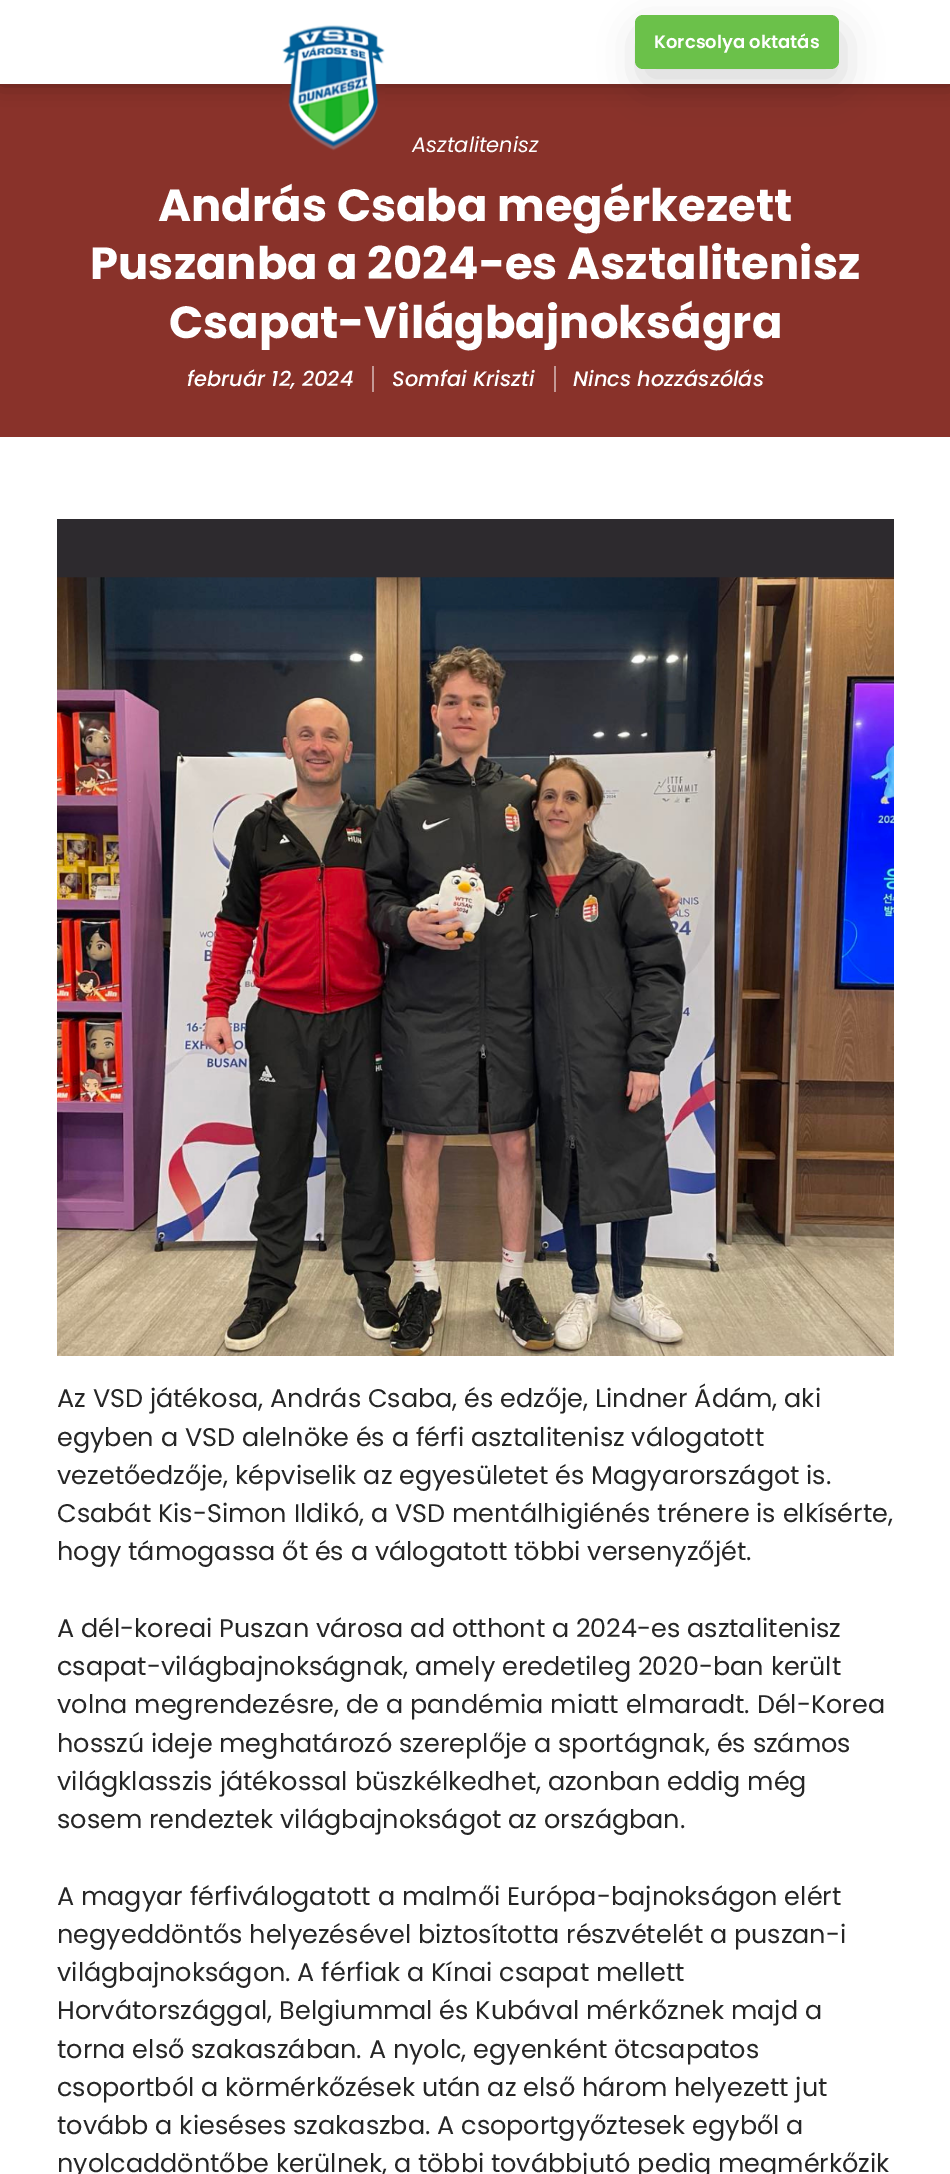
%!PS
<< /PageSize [950 2174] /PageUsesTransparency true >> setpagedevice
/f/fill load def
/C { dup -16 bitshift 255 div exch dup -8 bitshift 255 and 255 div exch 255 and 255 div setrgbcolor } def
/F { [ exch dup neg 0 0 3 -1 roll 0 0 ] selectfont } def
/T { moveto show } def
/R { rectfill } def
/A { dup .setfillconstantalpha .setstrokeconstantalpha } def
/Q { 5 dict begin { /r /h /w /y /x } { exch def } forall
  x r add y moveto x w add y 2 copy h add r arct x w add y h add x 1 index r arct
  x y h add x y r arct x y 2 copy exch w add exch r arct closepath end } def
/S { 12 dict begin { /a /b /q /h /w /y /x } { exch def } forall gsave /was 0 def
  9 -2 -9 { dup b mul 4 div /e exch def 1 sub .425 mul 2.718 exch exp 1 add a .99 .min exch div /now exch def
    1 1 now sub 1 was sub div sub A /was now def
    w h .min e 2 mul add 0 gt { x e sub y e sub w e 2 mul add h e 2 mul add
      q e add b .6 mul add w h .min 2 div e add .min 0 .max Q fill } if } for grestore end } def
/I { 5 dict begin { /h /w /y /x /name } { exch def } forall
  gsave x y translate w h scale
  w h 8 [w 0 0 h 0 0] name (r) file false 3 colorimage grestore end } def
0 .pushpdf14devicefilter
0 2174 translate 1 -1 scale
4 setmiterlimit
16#FFFFFF C
0 0 950 2174 R
16#89322A C
0 84 950 353 R
16#000000 C
0 -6 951 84 0 13 .5 S
16#FFFFFF C
0 0 950 84 R
(1.rgb) 282 25 103 126 I
16#000000 C
639 30 204 54 8 19 .15 S
16#6BC14A C
635 15 204 54 8 Q f
/Poppins-SemiBold 18 F
16#FFFFFF C
(Korcsolya oktatás) 654 48 T
/Poppins-Italic 21 F
(Asztalitenisz) 412 152 T
/Poppins-Bold 45 F
(András Csaba megérkezett) 158 221 T
(Puszanba a 2024-es Asztalitenisz) 90 279 T
(Csapat-Világbajnokságra) 169 338 T
/Poppins-MediumItalic 21 F
(február 12, 2024) 187 386 T
16#C49995 C
372 366 2 26 R
16#FFFFFF C
(Somfai Kriszti) 392 386 T
16#C49995 C
554 366 2 26 R
16#FFFFFF C
(Nincs hozzászólás) 573 386 T
(2.rgb) 57 519 837 837 I
/Poppins-Regular 25.5 F
16#262626 C
(Az VSD játékosa, András Csaba, és edzője, Lindner Ádám, aki) 57 1407 T
(egyben a VSD alelnöke és a férfi asztalitenisz válogatott) 57 1446 T
(vezetőedzője, képviselik az egyesületet és Magyarországot is.) 57 1484 T
(Csabát Kis-Simon Ildikó, a VSD mentálhigiénés trénere is elkísérte,) 57 1522 T
(hogy támogassa őt és a válogatott többi versenyzőjét.) 57 1560 T
(A dél-koreai Puszan városa ad otthont a 2024-es asztalitenisz) 57 1637 T
(csapat-világbajnokságnak, amely eredetileg 2020-ban került) 57 1675 T
(volna megrendezésre, de a pandémia miatt elmaradt. Dél-Korea) 57 1713 T
(hosszú ideje meghatározó szereplője a sportágnak, és számos) 57 1752 T
(világklasszis játékossal büszkélkedhet, azonban eddig még) 57 1790 T
(sosem rendeztek világbajnokságot az országban.) 57 1828 T
(A magyar férfiválogatott a malmői Európa-bajnokságon elért) 57 1905 T
(negyeddöntős helyezésével biztosította részvételét a puszan-i) 57 1943 T
(világbajnokságon. A férfiak a Kínai csapat mellett) 57 1981 T
(Horvátországgal, Belgiummal és Kubával mérkőznek majd a) 57 2019 T
(torna első szakaszában. A nyolc, egyenként ötcsapatos) 57 2058 T
(csoportból a körmérkőzések után az első három helyezett jut) 57 2096 T
(tovább a kieséses szakaszba. A csoportgyőztesek egyből a) 57 2134 T
(nyolcaddöntőbe kerülnek, a többi továbbjutó pedig megmérkőzik) 57 2172 T
.poppdf14devicefilter showpage
